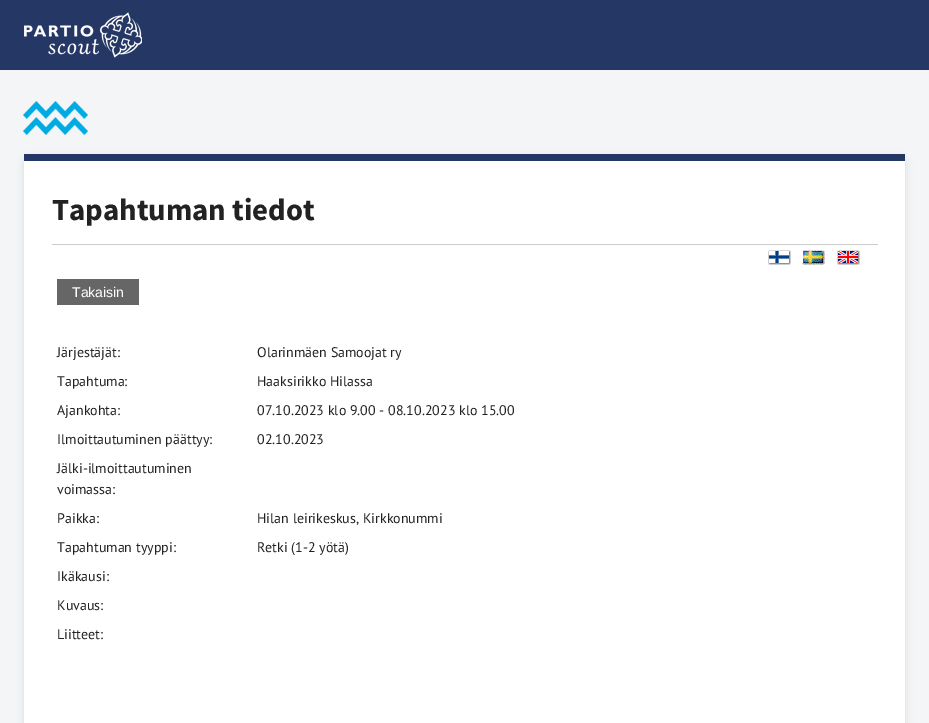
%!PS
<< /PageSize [929 723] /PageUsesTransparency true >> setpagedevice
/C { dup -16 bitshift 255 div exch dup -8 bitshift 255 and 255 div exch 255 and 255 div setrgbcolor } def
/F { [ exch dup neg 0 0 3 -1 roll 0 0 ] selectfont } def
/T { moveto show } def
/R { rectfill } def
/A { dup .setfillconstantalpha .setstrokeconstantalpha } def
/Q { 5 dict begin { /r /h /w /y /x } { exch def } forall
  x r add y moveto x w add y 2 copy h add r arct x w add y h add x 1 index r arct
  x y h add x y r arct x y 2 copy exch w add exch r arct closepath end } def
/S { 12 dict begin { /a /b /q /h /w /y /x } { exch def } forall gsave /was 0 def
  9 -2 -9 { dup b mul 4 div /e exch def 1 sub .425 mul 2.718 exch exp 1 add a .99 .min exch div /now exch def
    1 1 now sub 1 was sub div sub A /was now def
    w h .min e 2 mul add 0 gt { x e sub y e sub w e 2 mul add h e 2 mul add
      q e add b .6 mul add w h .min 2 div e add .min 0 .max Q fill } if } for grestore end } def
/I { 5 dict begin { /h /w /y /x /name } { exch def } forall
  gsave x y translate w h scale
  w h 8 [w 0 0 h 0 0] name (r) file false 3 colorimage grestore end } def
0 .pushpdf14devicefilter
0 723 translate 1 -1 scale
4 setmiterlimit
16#F4F5F7 C
0 0 929 723 R
16#253764 C
0 0 929 70 R
(1.rgb) 24 12 118 46 I
16#000000 C
24 158 881 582 5 4 .1 S
16#FFFFFF C
24 161 881 562 R
16#253764 C
24 154 881 7 R
(2.rgb) 23 101 65 34 I
/SourceSansPro-Bold 30.75 F
16#222222 C
(Tapahtuman tiedot) 52 220 T
16#CCCCCC C
52 244 826 1 R
(3.rgb) 768 250 23 15 I
(4.rgb) 802 250 23 15 I
(5.rgb) 837 250 23 15 I
16#666666 C
57 279 82 26 R
/LiberationSans-Regular 14 F
16#FFFFFF C
(Takaisin) 72 297 T
/PTSans-Regular 14 F
16#222222 C
(Järjestäjät:) 57 357 T
(Olarinmäen Samoojat ry) 257 357 T
(Tapahtuma:) 57 386 T
(Haaksirikko Hilassa) 257 386 T
(Ajankohta:) 57 415 T
(07.10.2023 klo 9.00 - 08.10.2023 klo 15.00) 257 415 T
(Ilmoittautuminen päättyy:) 57 444 T
(02.10.2023) 257 444 T
(Jälki-ilmoittautuminen) 57 473 T
(voimassa:) 57 494 T
(Paikka:) 57 523 T
(Hilan leirikeskus, Kirkkonummi) 257 523 T
(Tapahtuman tyyppi:) 57 552 T
(Retki \(1-2 yötä\)) 257 552 T
(Ikäkausi:) 57 581 T
(Kuvaus:) 57 610 T
(Liitteet:) 57 639 T
.poppdf14devicefilter showpage
